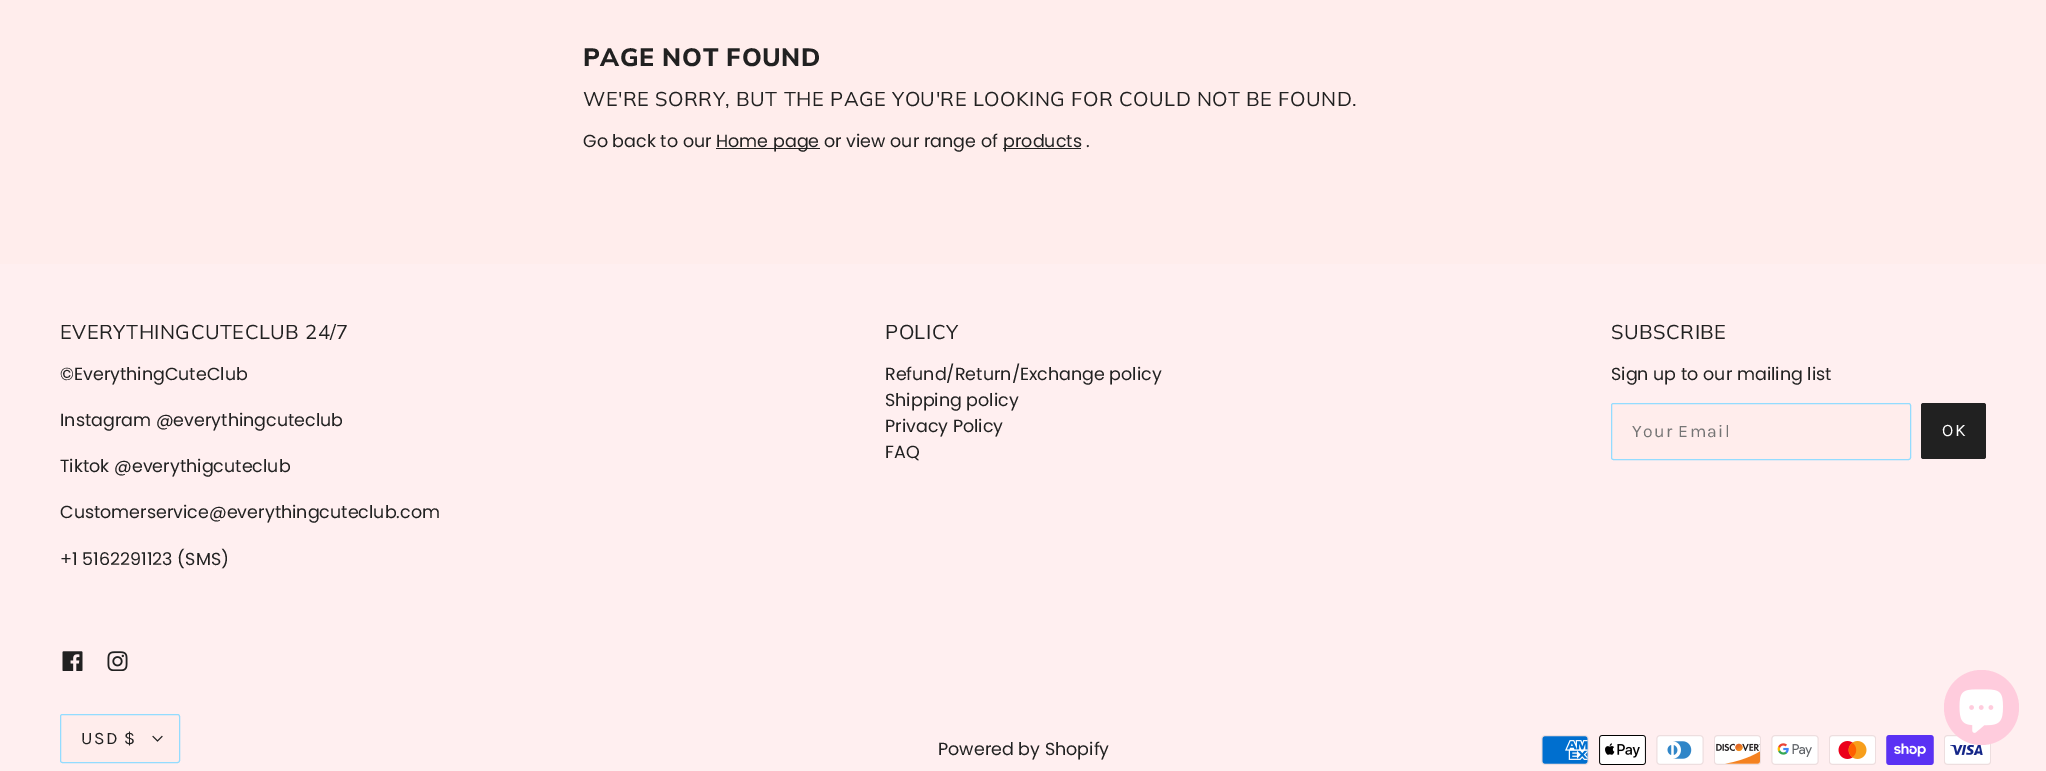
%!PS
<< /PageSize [2046 771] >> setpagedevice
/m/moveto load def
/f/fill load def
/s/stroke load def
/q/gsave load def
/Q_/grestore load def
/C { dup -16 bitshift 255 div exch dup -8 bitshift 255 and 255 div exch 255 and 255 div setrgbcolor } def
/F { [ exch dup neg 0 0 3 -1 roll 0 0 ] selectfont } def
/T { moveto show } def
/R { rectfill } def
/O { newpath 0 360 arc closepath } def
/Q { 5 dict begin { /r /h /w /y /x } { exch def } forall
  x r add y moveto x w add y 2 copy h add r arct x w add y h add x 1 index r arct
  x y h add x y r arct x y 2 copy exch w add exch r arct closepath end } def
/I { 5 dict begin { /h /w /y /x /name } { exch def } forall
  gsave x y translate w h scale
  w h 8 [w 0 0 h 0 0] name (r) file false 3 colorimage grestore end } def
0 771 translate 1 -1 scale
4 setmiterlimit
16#FFEDEC C
0 0 2046 771 R
/Muli-ExtraBold 25 F
16#212121 C
583 66 m .6 0 (PAGE NOT FOUND) ashow
/Muli-Regular 20 F
583 106 m .5 0 (WE'RE SORRY, BUT THE PAGE YOU'RE LOOKING FOR COULD NOT BE FOUND.) ashow
/Poppins-Regular 17.5 F
(Go back to our) 583 147 T
716 148 104 1 R
(Home page or view our range of) 716 147 T
1003 148 78 1 R
(products .) 1003 147 T
16#FFEFF0 C
0 264 2046 507 R
/Muli-Regular 20 F
16#212121 C
60 339 m .5 0 (EVERYTHINGCUTECLUB 24/7) ashow
/Poppins-Regular 17.5 F
(©EverythingCuteClub) 60 380 T
(Instagram @everythingcuteclub) 60 426 T
(Tiktok @everythigcuteclub) 60 472 T
(Customerservice@everythingcuteclub.com) 60 518 T
(+1 5162291123 \(SMS\)) 60 565 T
(1.rgb) 62 651 21 20 I
(2.rgb) 107 651 21 20 I
/Muli-Regular 20 F
885 339 m .5 0 (POLICY) ashow
/Poppins-Regular 17.5 F
(Refund/Return/Exchange policy) 885 380 T
(Shipping policy) 885 406 T
(Privacy Policy) 885 432 T
(FAQ) 885 458 T
/Muli-Regular 20 F
1611 339 m .5 0 (SUBSCRIBE) ashow
/Poppins-Regular 17.5 F
(Sign up to our mailing list) 1611 380 T
16#FFEDEC C
1611.5 403.5 299 56 2 Q q f Q_
16#93DCFF C
s
/Karla-Regular 17.5 F
16#757575 C
1632 437 m 1.25 0 (Your Email) ashow
16#212121 C
1921 403 65 56 2.5 Q f
16#FFFFFF C
1942 436 m 1.25 0 (OK) ashow
16#FFEDEC C
60.5 714.5 119 48 2 Q q f Q_
16#93DCFF C
s
16#212121 C
81 744 m 1.25 0 (USD $) ashow
(3.rgb) 152 735 11 7 I
/Poppins-Regular 17.5 F
(Powered by Shopify) 938 755 T
(4.rgb) 1541 735 48 30 I
(5.rgb) 1599 735 47 30 I
(6.rgb) 1656 735 48 30 I
(7.rgb) 1714 735 47 30 I
(8.rgb) 1771 735 48 30 I
(9.rgb) 1829 735 47 30 I
(10.rgb) 1886 735 48 30 I
(11.rgb) 1944 735 47 30 I
16#FFCCDD C
1981.5 707.5 37.5 O f
(12.rgb) 1959 689 44 44 I
showpage
